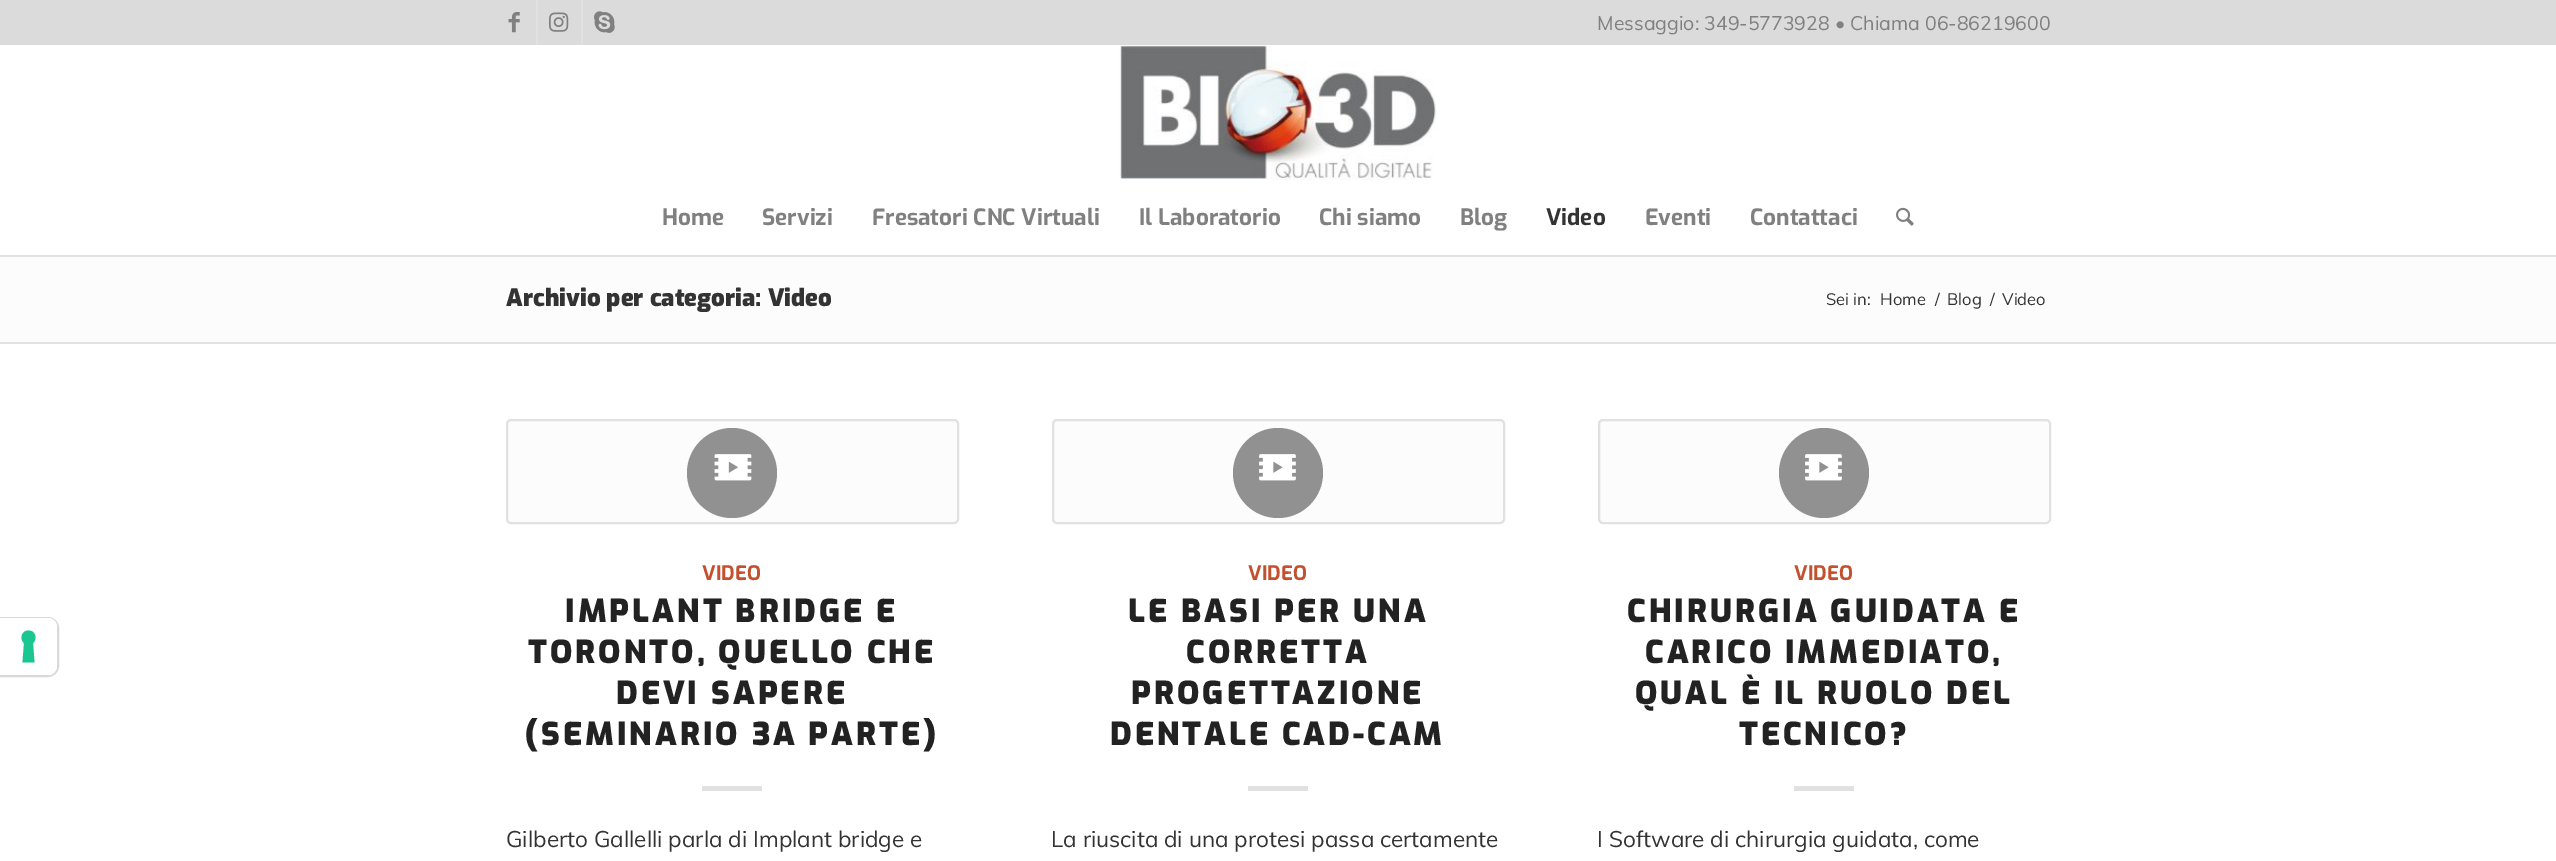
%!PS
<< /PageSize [2556 861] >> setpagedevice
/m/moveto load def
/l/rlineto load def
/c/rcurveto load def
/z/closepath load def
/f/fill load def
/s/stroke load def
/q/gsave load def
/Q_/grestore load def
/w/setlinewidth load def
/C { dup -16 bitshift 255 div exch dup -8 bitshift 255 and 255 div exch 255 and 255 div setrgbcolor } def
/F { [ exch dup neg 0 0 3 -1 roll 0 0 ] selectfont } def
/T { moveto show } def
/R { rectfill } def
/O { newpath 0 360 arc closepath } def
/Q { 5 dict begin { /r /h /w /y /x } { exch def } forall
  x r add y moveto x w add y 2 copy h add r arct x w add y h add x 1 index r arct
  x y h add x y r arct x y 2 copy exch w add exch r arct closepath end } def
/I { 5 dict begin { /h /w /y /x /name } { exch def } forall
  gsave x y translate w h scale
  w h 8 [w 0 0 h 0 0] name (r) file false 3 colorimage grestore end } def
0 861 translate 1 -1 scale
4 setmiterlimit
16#FFFFFF C
0 0 2556 861 R
16#D9D9D9 C
2 w
0 618 m 48 0 l 5.5 0 10 4.5 10 10 c 0 38 l 0 5.5 -4.5 10 -10 10 c -48 0 l z s
16#FFFFFF C
0 618 m 48 0 l 5 0 9 4 9 9 c 0 39 l 0 5 -4 9 -9 9 c -48 0 l z f
16#1CC691 C
28.5 630.5 m 6.5 0 9.5 8 4.5 12.5 c 1.5 19.5 l -12 0 l 1.5 -19.5 l -5 -4.5 -2 -12.5 4.5 -12.5 c z eofill
16#DBDBDB C
0 0 2556 45 R
16#E1E1E1 C
536 0 2 45 R
(1.rgb) 508 12 12 21 I
581 0 2 45 R
(2.rgb) 549 12 20 20 I
(3.rgb) 594 11 21 22 I
/Muli-Regular 19.5 F
16#808080 C
(Messaggio: 349-5773928 • Chiama 06-86219600) 1597 30 T
(4.rgb) 1119 45 318 135 I
/Exo-Bold 22.5 F
(Home) 662 225 T
(Servizi) 762 225 T
(Fresatori CNC Virtuali) 872 225 T
(Il Laboratorio) 1139 225 T
(Chi siamo) 1319 225 T
(Blog) 1460 225 T
16#333333 C
(Video) 1546 225 T
16#808080 C
(Eventi) 1645 225 T
(Contattaci) 1750 225 T
(5.rgb) 1896 207 18 19 I
16#FCFCFC C
0 257 2556 85 R
16#E1E1E1 C
0 255 2556 2 R
/Exo-Black 24 F
16#333333 C
(Archivio per categoria: Video) 506 306 T
/Muli-Regular 16.5 F
(Sei in:) 1826 305 T
(Home) 1880 305 T
(/) 1935 305 T
(Blog) 1947 305 T
(/) 1990 305 T
(Video) 2002 305 T
16#E1E1E1 C
0 342 2556 2 R
16#FCFCFC C
507 420 451 103 4 Q q f Q_
16#E1E1E1 C
s
16#919191 C
732 473 45 O f
(6.rgb) 714 454 38 27 I
/Exo-Bold 20 F
16#C3512F C
(VIDEO) 702 580 T
/Exo-Black 31.5 F
16#222222 C
565 622 m 3 0 (IMPLANT BRIDGE E) ashow
528 663 m 3 0 (TORONTO, QUELLO CHE) ashow
616 704 m 3 0 (DEVI SAPERE) ashow
525 745 m 3 0 (\(SEMINARIO 3A PARTE\)) ashow
16#E1E1E1 C
702 786 60 5 R
/Muli-Regular 22.5 F
16#333333 C
(Gilberto Gallelli parla di Implant bridge e) 506 847 T
16#FCFCFC C
1053 420 451 103 4 Q q f Q_
16#E1E1E1 C
s
16#919191 C
1278 473 45 O f
(7.rgb) 1259 454 37 27 I
/Exo-Bold 20 F
16#C3512F C
(VIDEO) 1248 580 T
/Exo-Black 31.5 F
16#222222 C
1128 622 m 3 0 (LE BASI PER UNA) ashow
1186 663 m 3 0 (CORRETTA) ashow
1131 704 m 3 0 (PROGETTAZIONE) ashow
1110 745 m 3 0 (DENTALE CAD-CAM) ashow
16#E1E1E1 C
1248 786 60 5 R
/Muli-Regular 22.5 F
16#333333 C
(La riuscita di una protesi passa certamente) 1051 847 T
16#FCFCFC C
1599 420 451 103 4 Q q f Q_
16#E1E1E1 C
s
16#919191 C
1824 473 45 O f
(7.rgb) 1805 454 37 27 I
/Exo-Bold 20 F
16#C3512F C
(VIDEO) 1794 580 T
/Exo-Black 31.5 F
16#222222 C
1627 622 m 3 0 (CHIRURGIA GUIDATA E) ashow
1645 663 m 3 0 (CARICO IMMEDIATO,) ashow
1635 704 m 3 0 (QUAL È IL RUOLO DEL) ashow
1739 745 m 3 0 (TECNICO?) ashow
16#E1E1E1 C
1794 786 60 5 R
/Muli-Regular 22.5 F
16#333333 C
(I Software di chirurgia guidata, come) 1597 847 T
showpage
